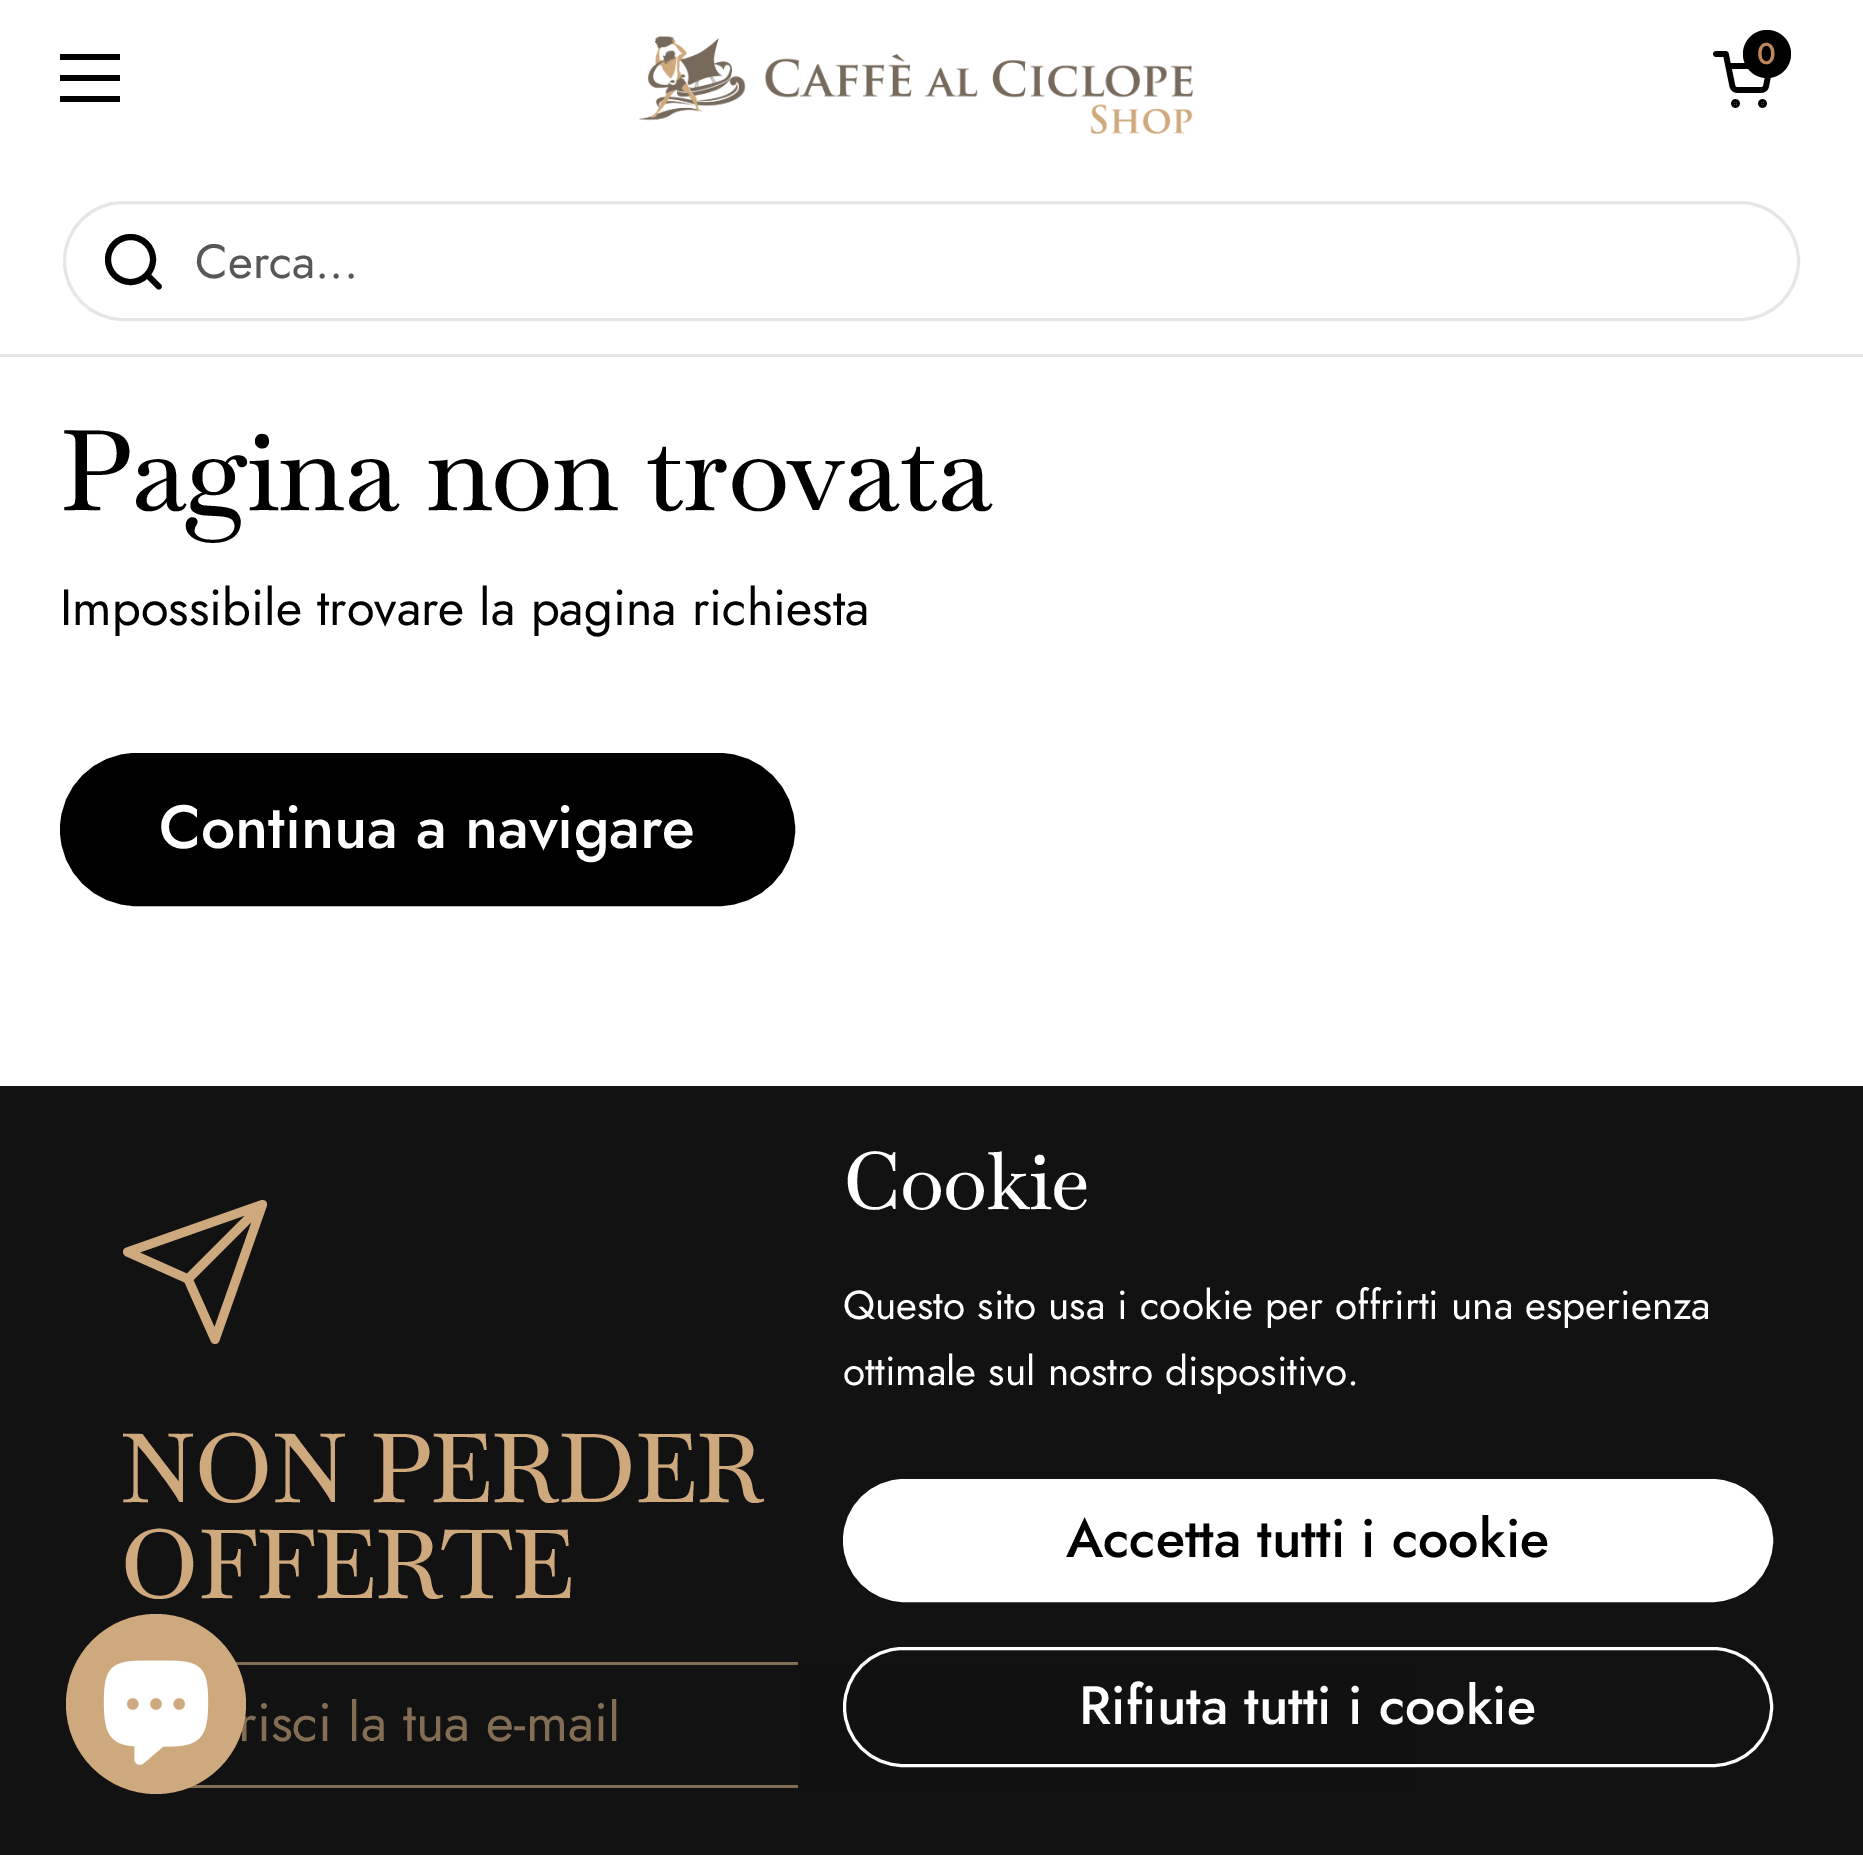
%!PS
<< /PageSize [1863 1855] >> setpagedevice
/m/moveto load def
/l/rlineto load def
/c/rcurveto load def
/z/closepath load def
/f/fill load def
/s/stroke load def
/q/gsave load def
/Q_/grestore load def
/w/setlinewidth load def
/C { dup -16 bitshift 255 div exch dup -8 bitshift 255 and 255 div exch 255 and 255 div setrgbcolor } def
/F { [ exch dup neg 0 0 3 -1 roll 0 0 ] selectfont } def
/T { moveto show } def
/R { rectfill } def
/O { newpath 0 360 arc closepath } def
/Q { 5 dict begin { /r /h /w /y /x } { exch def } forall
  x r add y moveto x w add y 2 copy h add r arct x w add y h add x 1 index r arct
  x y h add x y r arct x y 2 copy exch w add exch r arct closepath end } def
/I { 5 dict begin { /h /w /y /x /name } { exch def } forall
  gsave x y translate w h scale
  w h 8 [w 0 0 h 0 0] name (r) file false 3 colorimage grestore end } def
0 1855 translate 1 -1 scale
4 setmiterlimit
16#FFFFFF C
0 0 1863 1855 R
16#000000 C
60 54 60 6 R
60 75 60 6 R
60 96 60 6 R
(1.rgb) 639 35 555 99 I
(2.rgb) 1713 51 58 57 I
1767 54 24 O f
/Jost-Medium 30 F
16#BE865C C
(0) 1757 64 T
16#E6E6E6 C
0 354 1863 3 R
3 w
64.5 202.5 1734 117 58.5 Q s
16#000000 C
6 w
130.5 259.5 22.5 O s
150.5 274 m -2.5 -2 l -4 4 l 2 2 l z 156.5 288.5 m 3 3 7 -1.5 4.5 -4 c z 146 278 m 10.5 10.5 l 4.5 -4 l -10.5 -10.5 l z f
/Jost-Regular 48 F
16#575757 C
(Cerca...) 195 278 T
/Baskervville-Medium 112 F
16#000000 C
60 510 m -1.1 0 (Pagina non trovata) ashow
/Jost-Regular 50.6 F
(Impossibile trovare la pagina richiesta) 60 625 T
61.5 754.5 732 150 75 Q q f Q_
3 w
s
/Jost-Medium 60.75 F
16#FFFFFF C
(Continua a navigare) 159 848 T
16#121212 C
0 1086 1863 769 R
16#CFA97E C
9 w
1 setlinecap
1 setlinejoin
262.5 1204.5 m -74.5 74.5 l 262.5 1204.5 m -47.5 135 l -27 -60.5 l -60.5 -27 l z s
/Baskervville-Medium 96 F
120 1502 m -1 0 (NON PERDER) ashow
120 1598 m -1 0 (OFFERTE) ashow
16#836D53 C
144 1662 m 1272 0 l 0 126 l -1272 0 l -13 0 -24 -11 -24 -24 c 0 -78 l 0 -13 11 -24 24 -24 c z 144 1665 m 1272 0 l 0 120 l -1272 0 l -12 0 -21 -9 -21 -21 c 0 -78 l 0 -12 9 -21 21 -21 c z eofill
/Jost-Regular 54 F
(risci la tua e-mail) 238 1741 T
16#111111 C
798 1662 618 126 R
/Baskervville-Medium 80 F
16#FFFFFF C
843 1209 m -.75 0 (Cookie) ashow
/Jost-Regular 40.5 F
(Questo sito usa i cookie per offrirti una esperienza) 843 1319 T
(ottimale sul nostro dispositivo.) 843 1385 T
844.5 1480.5 927 120 60 Q q f Q_
3 w
0 setlinecap
0 setlinejoin
s
/Jost-Medium 54 F
16#000000 C
(Accetta tutti i cookie) 1066 1557 T
16#FFFFFF C
844.5 1648.5 927 117 58.5 Q s
(Rifiuta tutti i cookie) 1079 1724 T
16#CFA97E C
156 1704 90 O f
(3.rgb) 103 1660 106 105 I
showpage
